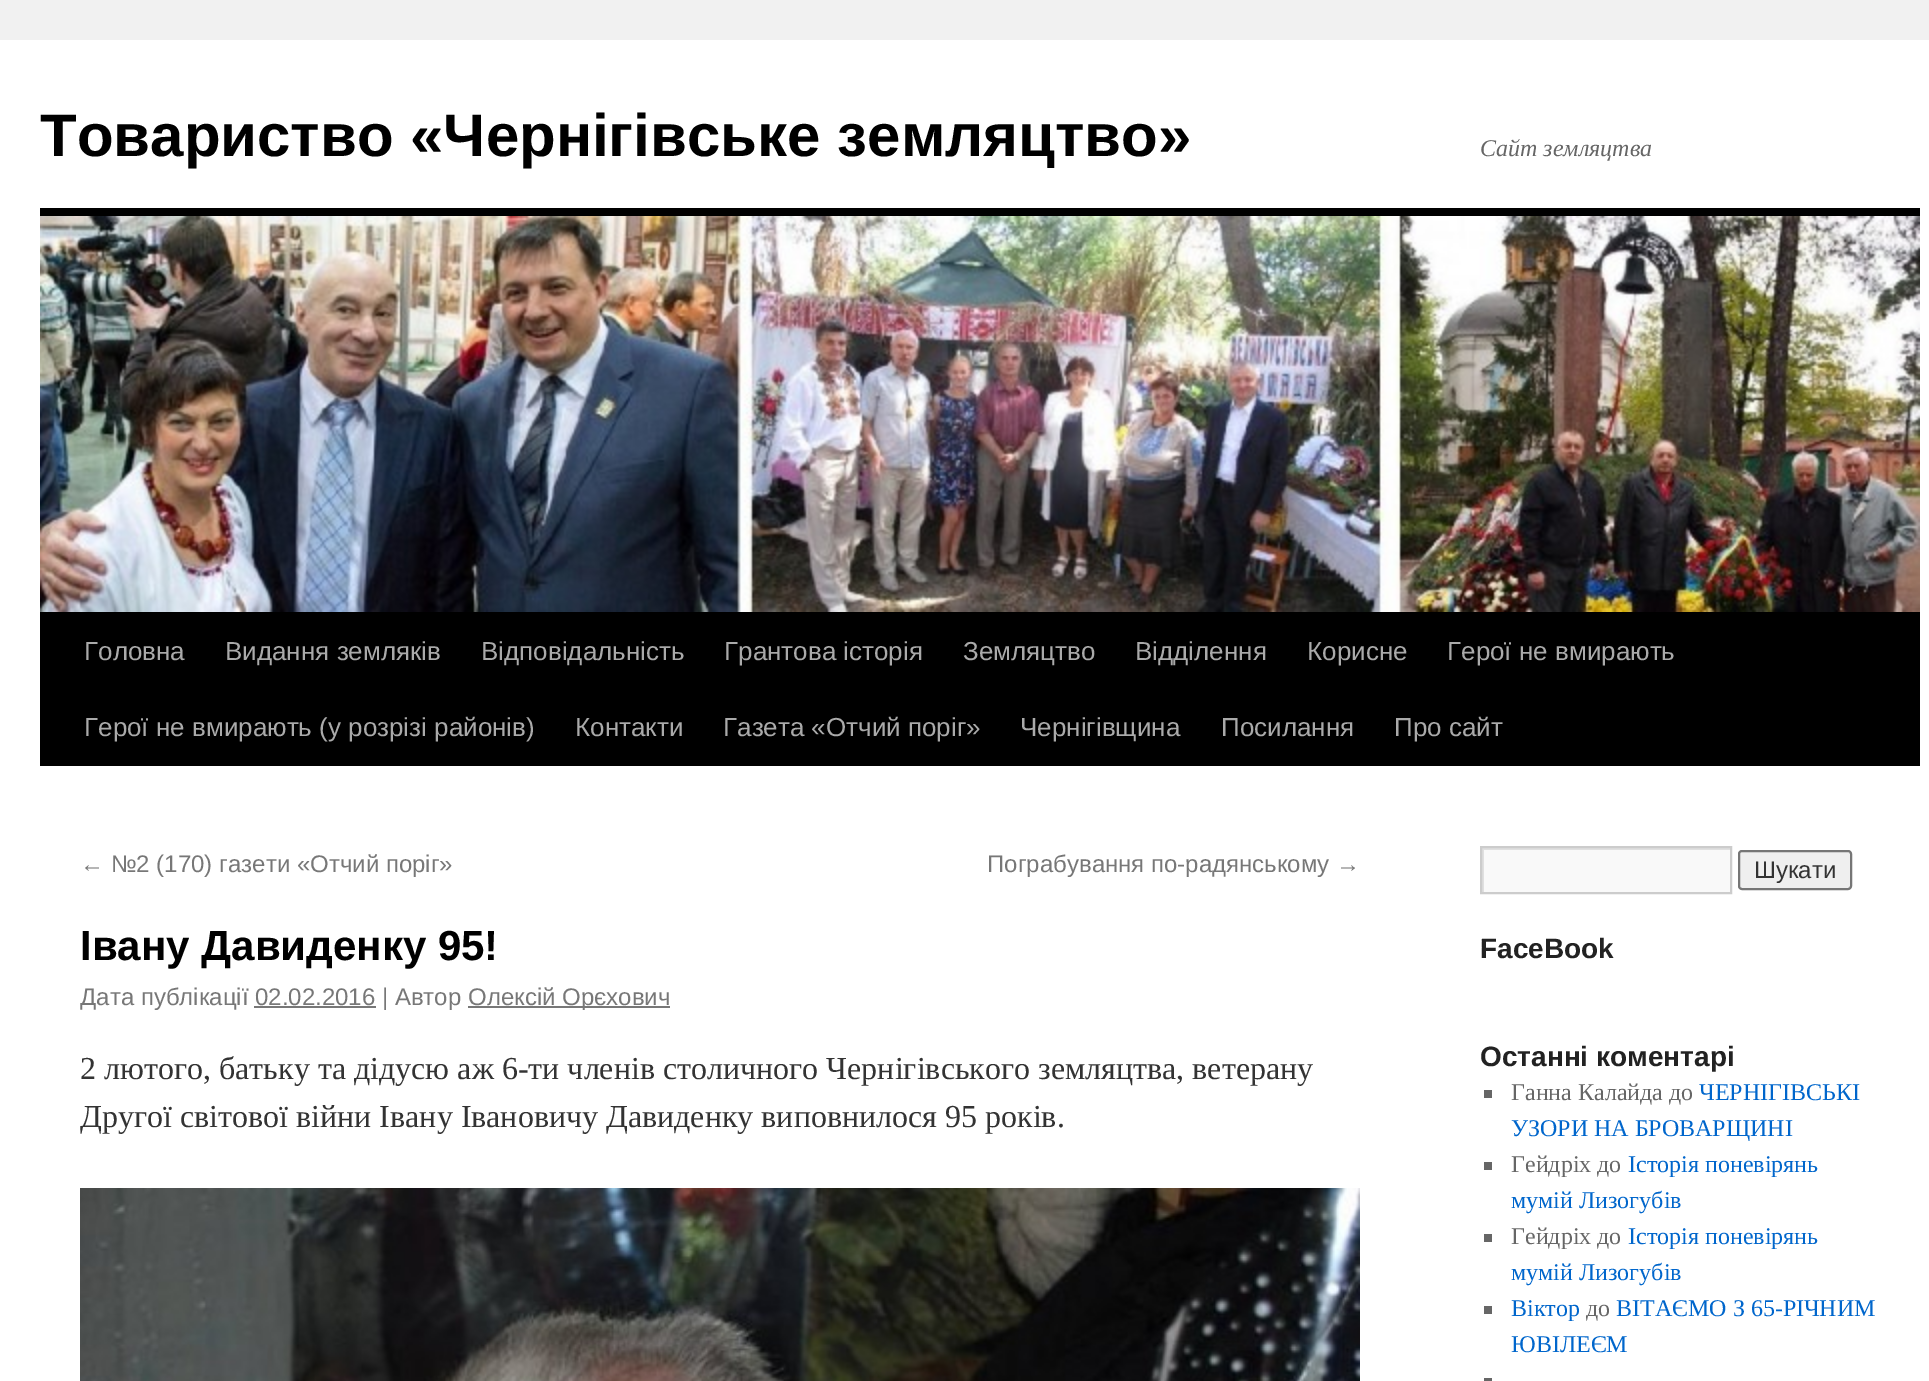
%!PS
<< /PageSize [1929 1381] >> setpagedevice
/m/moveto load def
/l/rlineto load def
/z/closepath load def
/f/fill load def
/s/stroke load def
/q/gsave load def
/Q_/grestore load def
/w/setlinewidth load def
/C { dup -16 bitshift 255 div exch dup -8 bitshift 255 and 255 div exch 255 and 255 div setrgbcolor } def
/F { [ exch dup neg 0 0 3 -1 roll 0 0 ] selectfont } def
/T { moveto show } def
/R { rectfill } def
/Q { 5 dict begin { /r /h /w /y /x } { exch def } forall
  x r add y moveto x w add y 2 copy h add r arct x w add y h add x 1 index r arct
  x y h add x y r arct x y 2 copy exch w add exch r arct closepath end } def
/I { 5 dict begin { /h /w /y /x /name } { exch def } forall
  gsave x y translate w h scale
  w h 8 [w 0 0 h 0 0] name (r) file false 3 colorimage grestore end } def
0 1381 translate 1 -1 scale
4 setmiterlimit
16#F1F1F1 C
0 0 1929 1381 R
16#FFFFFF C
0 40 1929 1341 R
/LiberationSans-Bold 60 F
16#000000 C
(Товариство «Чернігівське земляцтво») 40 156 T
/LiberationSerif-Italic 24 F
16#666666 C
(Сайт земляцтва) 1480 156 T
16#000000 C
40 208 1880 8 R
40 612 1880 154 R
(1.rgb) 40 216 1880 396 I
/LiberationSans-Regular 26 F
16#AAAAAA C
(Головна) 84 660 T
(Видання земляків) 225 660 T
(Відповідальність) 481 660 T
(Грантова історія) 724 660 T
(Земляцтво) 963 660 T
(Відділення) 1135 660 T
(Корисне) 1307 660 T
(Герої не вмирають) 1447 660 T
(Герої не вмирають \(у розрізі районів\)) 84 736 T
(Контакти) 575 736 T
(Газета «Отчий поріг») 723 736 T
(Чернігівщина) 1020 736 T
(Посилання) 1221 736 T
(Про сайт) 1394 736 T
/LiberationSans-Regular 24 F
16#777777 C
(← №2 \(170\) газети «Отчий поріг») 80 872 T
(Пограбування по-радянському →) 987 872 T
/LiberationSans-Bold 42 F
16#000000 C
(Івану Давиденку 95!) 80 960 T
/LiberationSans-Regular 24 F
16#777777 C
(Дата публікації 02.02.2016 | Автор) 80 1005 T
468 1006 202 2 R
(Олексій Орєхович) 468 1005 T
254 1006 122 2 R
/LiberationSerif-Regular 32 F
16#333333 C
(2 лютого, батьку та дідусю аж 6-ти членів столичного Чернігівського земляцтва, ветерану) 80 1079 T
(Другої світової війни Івану Івановичу Давиденку виповнилося 95 років.) 80 1127 T
(2.rgb) 80 1188 1280 193 I
16#F9F9F9 C
1484 850 246 42 R
q
1482 848 248 44 rectclip
16#E0E0E0 C
1284 650 m 644 0 l 0 440 l -644 0 l z 1484 850 m 248 0 l 0 44 l -248 0 l z eofill
Q_
16#CCCCCC C
2 w
1481 847 250 46 rectstroke
16#EFEFEF C
1739 851 112 38 3 Q q f Q_
16#767676 C
s
/LiberationSans-Regular 24 F
16#333333 C
(Шукати) 1754 878 T
/LiberationSans-Bold 28 F
16#222222 C
(FaceBook) 1480 958 T
(Останні коментарі) 1480 1066 T
16#666666 C
1484 1090 8 8 R
/LiberationSerif-Regular 24 F
(Ганна Калайда до) 1511 1100 T
16#0066CC C
(ЧЕРНІГІВСЬКІ) 1699 1100 T
(УЗОРИ НА БРОВАРЩИНІ) 1511 1136 T
16#666666 C
1484 1162 8 8 R
(Гейдріх до) 1511 1172 T
16#0066CC C
(Історія поневірянь) 1628 1172 T
(мумій Лизогубів) 1511 1208 T
16#666666 C
1484 1234 8 8 R
(Гейдріх до) 1511 1244 T
16#0066CC C
(Історія поневірянь) 1628 1244 T
(мумій Лизогубів) 1511 1280 T
16#666666 C
1484 1306 8 8 R
16#0066CC C
(Віктор) 1511 1316 T
16#666666 C
(до) 1586 1316 T
16#0066CC C
(ВІТАЄМО З 65-РІЧНИМ) 1616 1316 T
(ЮВІЛЕЄМ) 1511 1352 T
16#666666 C
1484 1378 8 3 R
showpage
